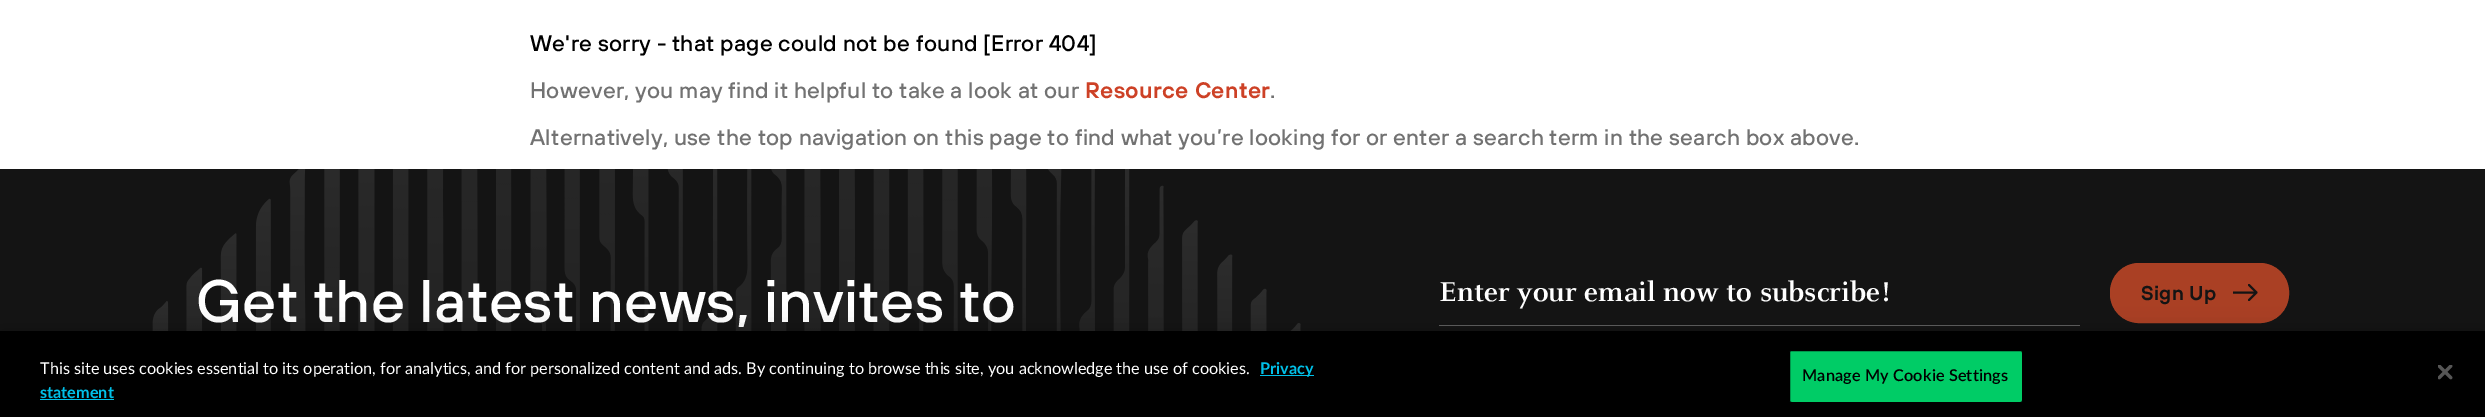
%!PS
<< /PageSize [2485 417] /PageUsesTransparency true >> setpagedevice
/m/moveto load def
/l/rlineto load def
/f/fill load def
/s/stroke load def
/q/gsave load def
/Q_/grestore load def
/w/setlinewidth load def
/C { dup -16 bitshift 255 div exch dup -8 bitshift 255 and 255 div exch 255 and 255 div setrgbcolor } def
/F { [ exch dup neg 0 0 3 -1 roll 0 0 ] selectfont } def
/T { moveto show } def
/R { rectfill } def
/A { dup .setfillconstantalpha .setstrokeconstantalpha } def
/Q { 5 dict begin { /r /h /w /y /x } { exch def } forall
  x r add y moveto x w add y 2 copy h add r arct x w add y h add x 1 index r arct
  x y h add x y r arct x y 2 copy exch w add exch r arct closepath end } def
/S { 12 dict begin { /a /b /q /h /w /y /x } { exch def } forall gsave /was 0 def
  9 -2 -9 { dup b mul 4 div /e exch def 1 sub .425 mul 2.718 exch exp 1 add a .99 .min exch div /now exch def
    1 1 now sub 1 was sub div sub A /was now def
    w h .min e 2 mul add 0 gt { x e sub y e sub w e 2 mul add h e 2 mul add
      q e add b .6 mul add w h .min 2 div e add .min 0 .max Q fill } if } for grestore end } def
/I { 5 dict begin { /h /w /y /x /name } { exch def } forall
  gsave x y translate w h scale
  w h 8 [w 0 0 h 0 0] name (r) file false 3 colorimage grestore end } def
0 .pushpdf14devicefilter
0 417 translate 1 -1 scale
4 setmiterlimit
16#FFFFFF C
0 0 2485 417 R
/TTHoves-Medium 22.5 F
16#000000 C
530 51 m .3 0 (We're sorry - that page could not be found [Error 404]) ashow
16#727272 C
530 98 m .28 0 (However, you may find it helpful to take a look at our) ashow
/TTHoves-SemiBold 22.5 F
16#CD4126 C
1085 98 m .28 0 (Resource Center) ashow
/TTHoves-Medium 22.5 F
16#727272 C
1270 98 m .28 0 (.) ashow
530 145 m .28 0 (Alternatively, use the top navigation on this page to find what you’re looking for or enter a search term in the search box above.) ashow
16#141414 C
0 169 2485 162 R
(1.rgb) 152 169 1149 162 I
/TTHoves-Medium 60 F
16#FFFFFF C
196 322 m .3 0 (Get the latest news, invites to) ashow
16#5F5F5F C
1439 325 641 1 R
/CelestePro-Bold 30 F
16#FFFFFF C
(Enter your email now to subscribe!) 1439 301 T
16#AA4024 C
2110.5 263.5 178 59 28.5 Q q f Q_
s
/TTHoves-SemiBold 20 F
16#141414 C
2141 300 m .25 0 (Sign Up) ashow
q
2233 280 25 25 rectclip
2.1 w
1 setlinecap
1 setlinejoin
2233.5 292.5 m 21 0 l 2249 285 m 7.5 7.5 l -7.5 7.5 l s
Q_
16#000000 C
0 331 2485 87 0 11 .2 S
0 331 2485 86 R
/Lato-Regular 16.25 F
16#FFFFFF C
(This site uses cookies essential to its operation, for analytics, and for personalized content and ads. By continuing to browse this site, you acknowledge the use of cookies.) 40 374 T
16#00C0E8 C
1260 375 54 1 R
/Lato-Bold 16.25 F
(Privacy) 1260 374 T
(statement) 40 398 T
40 399 74 1 R
16#00CC66 C
1789.5 350.5 233 52 2 Q q f Q_
16#000000 C
s
/Lato-SemiBold 16.25 F
1802 381 m .15 0 (Manage My Cookie Settings) ashow
(2.rgb) 2438 365 15 15 I
.poppdf14devicefilter showpage
